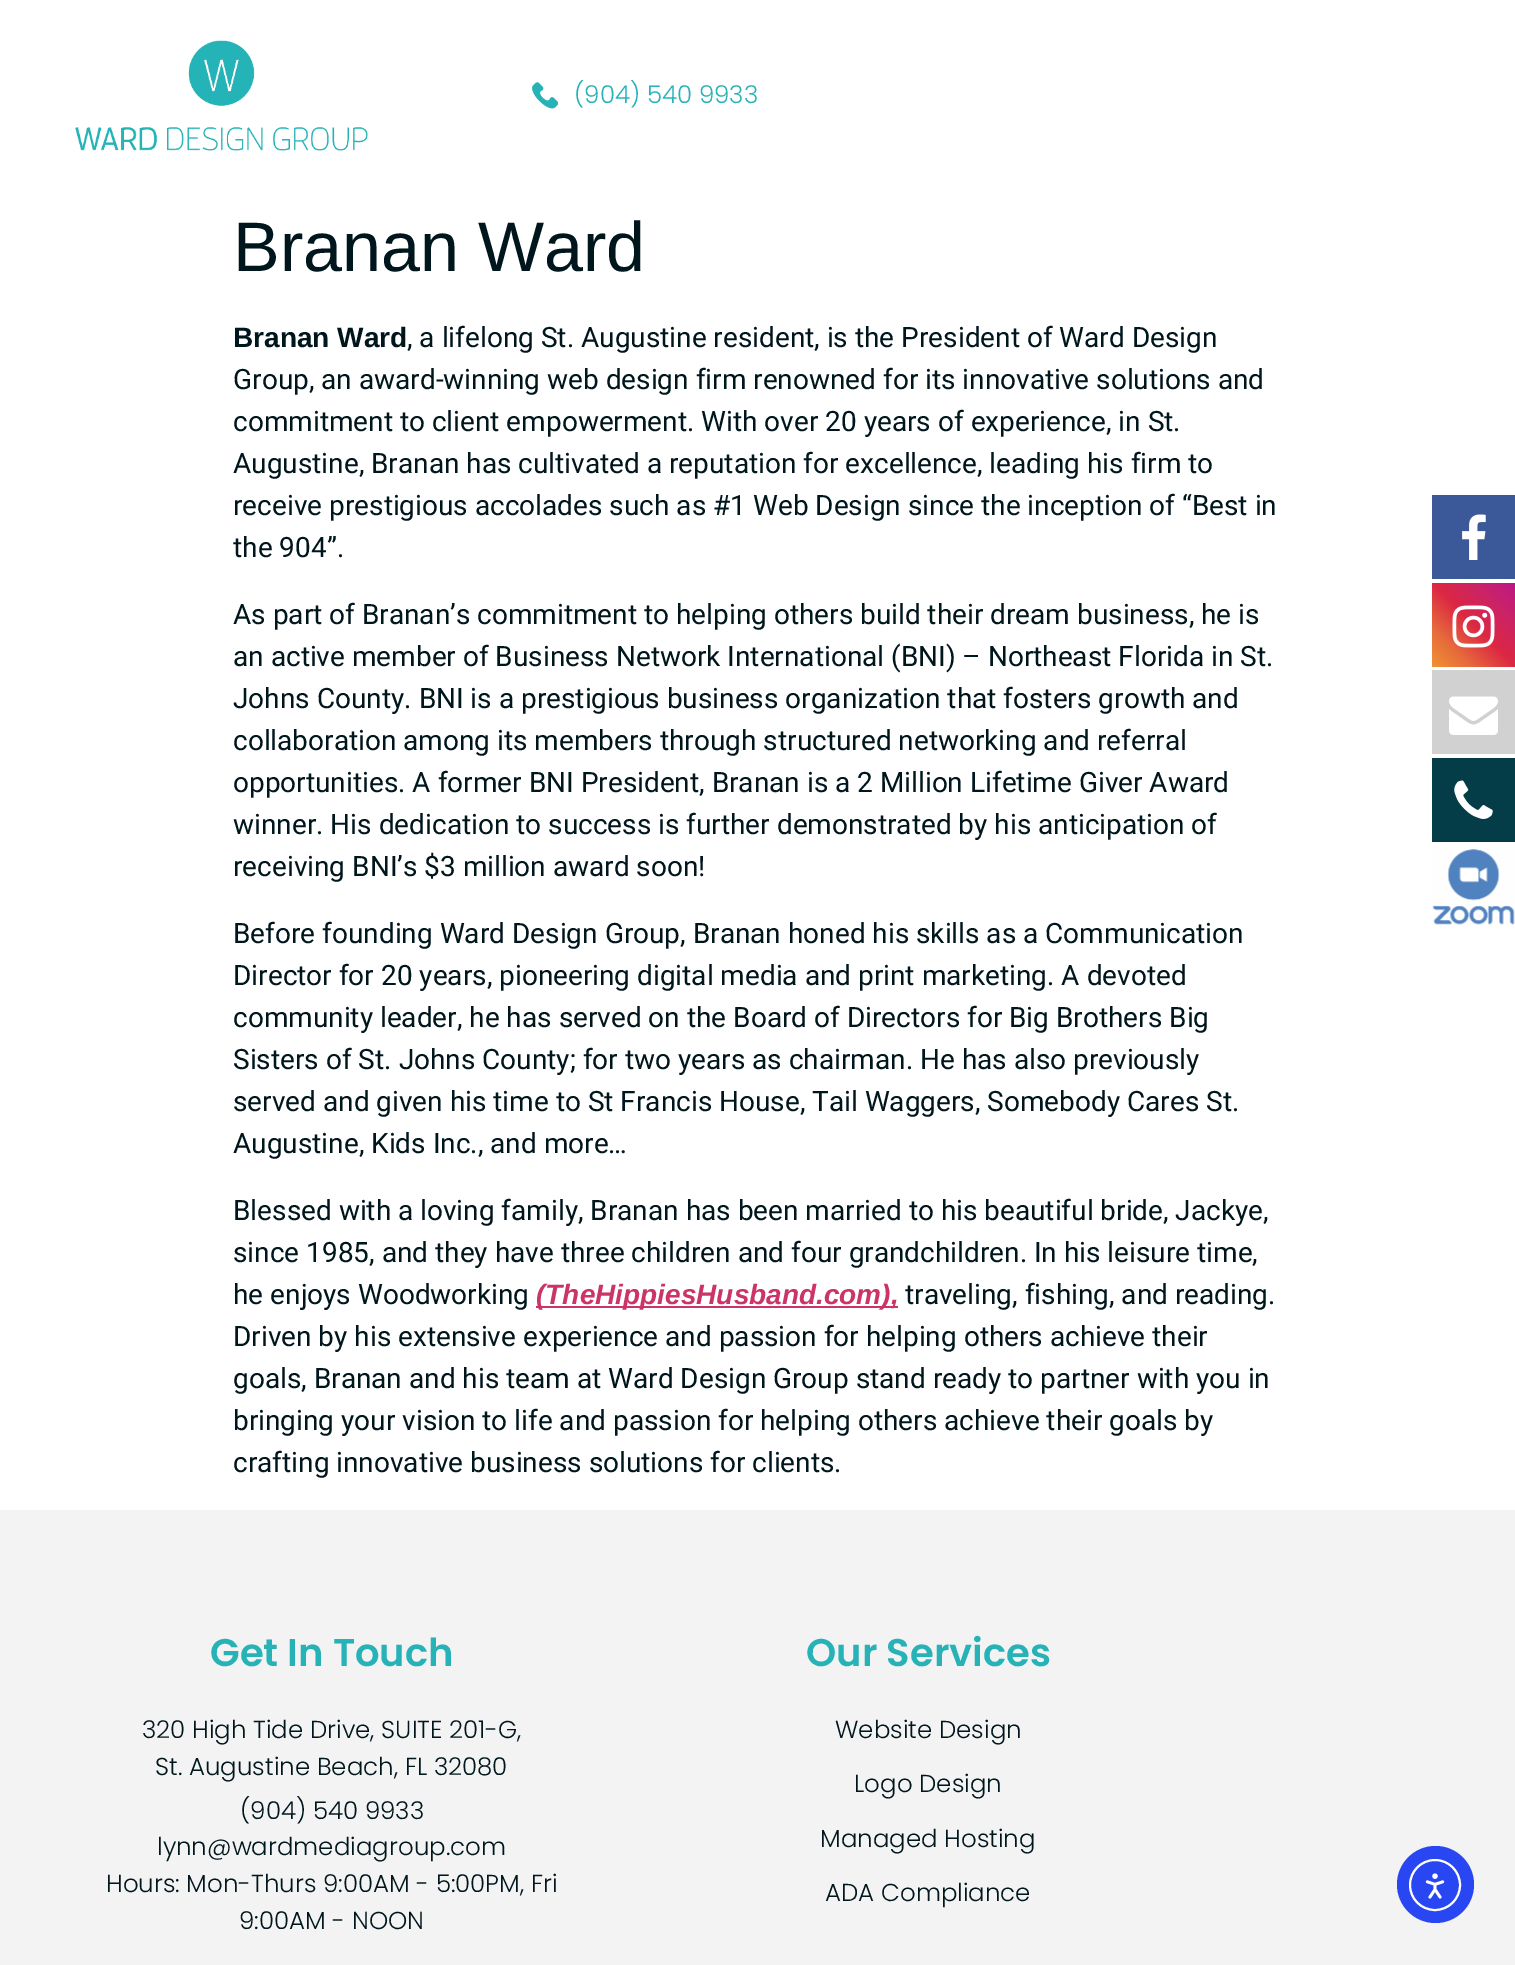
%!PS
<< /PageSize [1515 1965] >> setpagedevice
/m/moveto load def
/l/rlineto load def
/z/closepath load def
/f/fill load def
/s/stroke load def
/q/gsave load def
/Q_/grestore load def
/w/setlinewidth load def
/C { dup -16 bitshift 255 div exch dup -8 bitshift 255 and 255 div exch 255 and 255 div setrgbcolor } def
/F { [ exch dup neg 0 0 3 -1 roll 0 0 ] selectfont } def
/T { moveto show } def
/R { rectfill } def
/O { newpath 0 360 arc closepath } def
/I { 5 dict begin { /h /w /y /x /name } { exch def } forall
  gsave x y translate w h scale
  w h 8 [w 0 0 h 0 0] name (r) file false 3 colorimage grestore end } def
0 1965 translate 1 -1 scale
4 setmiterlimit
16#FFFFFF C
0 0 1515 1965 R
(1.rgb) 75 40 293 111 I
(2.rgb) 532 82 26 27 I
/Poppins-Light 24.5 F
16#26B2B7 C
(\(904\) 540 9933) 574 103 T
/LiberationSans-Regular 70 F
16#00161D C
(Branan Ward) 233 271 T
/LiberationSans-Bold 28 F
(Branan Ward) 233 347 T
/Roboto-Regular 28 F
(, a lifelong St. Augustine resident, is the President of Ward Design) 407 347 T
(Group, an award-winning web design firm renowned for its innovative solutions and) 233 389 T
(commitment to client empowerment. With over 20 years of experience, in St.) 233 431 T
(Augustine, Branan has cultivated a reputation for excellence, leading his firm to) 233 473 T
(receive prestigious accolades such as #1 Web Design since the inception of “Best in) 233 515 T
(the 904”.) 233 557 T
(As part of Branan’s commitment to helping others build their dream business, he is) 233 624 T
(an active member of Business Network International \(BNI\) – Northeast Florida in St.) 233 666 T
(Johns County. BNI is a prestigious business organization that fosters growth and) 233 708 T
(collaboration among its members through structured networking and referral) 233 750 T
(opportunities. A former BNI President, Branan is a 2 Million Lifetime Giver Award) 233 792 T
(winner. His dedication to success is further demonstrated by his anticipation of) 233 834 T
(receiving BNI’s $3 million award soon!) 233 876 T
(Before founding Ward Design Group, Branan honed his skills as a Communication) 233 943 T
(Director for 20 years, pioneering digital media and print marketing. A devoted) 233 985 T
(community leader, he has served on the Board of Directors for Big Brothers Big) 233 1027 T
(Sisters of St. Johns County; for two years as chairman. He has also previously) 233 1069 T
(served and given his time to St Francis House, Tail Waggers, Somebody Cares St.) 233 1111 T
(Augustine, Kids Inc., and more…) 233 1153 T
(Blessed with a loving family, Branan has been married to his beautiful bride, Jackye,) 233 1220 T
(since 1985, and they have three children and four grandchildren. In his leisure time,) 233 1262 T
(he enjoys Woodworking) 233 1304 T
16#CC3366 C
536 1306 362 2 R
/LiberationSans-BoldItalic 28 F
(\(TheHippiesHusband.com\),) 536 1304 T
/Roboto-Regular 28 F
16#00161D C
(traveling, fishing, and reading.) 905 1304 T
(Driven by his extensive experience and passion for helping others achieve their) 233 1346 T
(goals, Branan and his team at Ward Design Group stand ready to partner with you in) 233 1388 T
(bringing your vision to life and passion for helping others achieve their goals by) 233 1430 T
(crafting innovative business solutions for clients.) 233 1472 T
16#3B5998 C
1432 495 83 84 R
(3.rgb) 1462 514 24 46 I
q 1432 583 m 83 0 l 0 84 l -83 0 l z clip newpath
<< /ShadingType 2 /ColorSpace /DeviceRGB /Coords [1432 667 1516 583] /Extend [true true] /Function << /FunctionType 3 /Domain [0 1] /Functions [<< /FunctionType 2 /Domain [0 1] /C0 [.941 .58 .2] /C1 [.902 .408 .235] /N 1 >> << /FunctionType 2 /Domain [0 1] /C0 [.902 .408 .235] /C1 [.863 .153 .263] /N 1 >> << /FunctionType 2 /Domain [0 1] /C0 [.863 .153 .263] /C1 [.8 .137 .4] /N 1 >> << /FunctionType 2 /Domain [0 1] /C0 [.8 .137 .4] /C1 [.737 .094 .533] /N 1 >>] /Bounds [.25 .5 .75] /Encode [0 1 0 1 0 1 0 1] >> >> shfill Q_
(4.rgb) 1452 605 43 43 I
16#D1D1D1 C
1432 670 83 84 R
(5.rgb) 1449 696 49 39 I
16#043D47 C
1432 758 83 84 R
(6.rgb) 1454 780 39 39 I
(7.rgb) 1432 849 83 76 I
16#F3F3F3 C
0 1510 1515 455 R
/Poppins-SemiBold 38.5 F
16#26B2B7 C
(Get In Touch) 210 1666 T
/Poppins-Light 24.5 F
16#00161D C
(320 High Tide Drive, SUITE 201-G,) 142 1738 T
(St. Augustine Beach, FL 32080) 155 1775 T
(\(904\) 540 9933) 240 1819 T
(lynn@wardmediagroup.com) 157 1855 T
(Hours: Mon-Thurs 9:00AM - 5:00PM, Fri) 106 1892 T
(9:00AM - NOON) 239 1929 T
/Poppins-SemiBold 38.5 F
16#26B2B7 C
(Our Services) 806 1666 T
/Poppins-Light 24.5 F
16#00161D C
(Website Design) 835 1738 T
(Logo Design) 854 1792 T
(Managed Hosting) 820 1847 T
(ADA Compliance) 825 1901 T
16#2847F3 C
1435.5 1884.5 38.5 O f
16#FFFFFF C
2 w
1435 1885 25 O s
(8.rgb) 1425 1873 20 26 I
showpage
